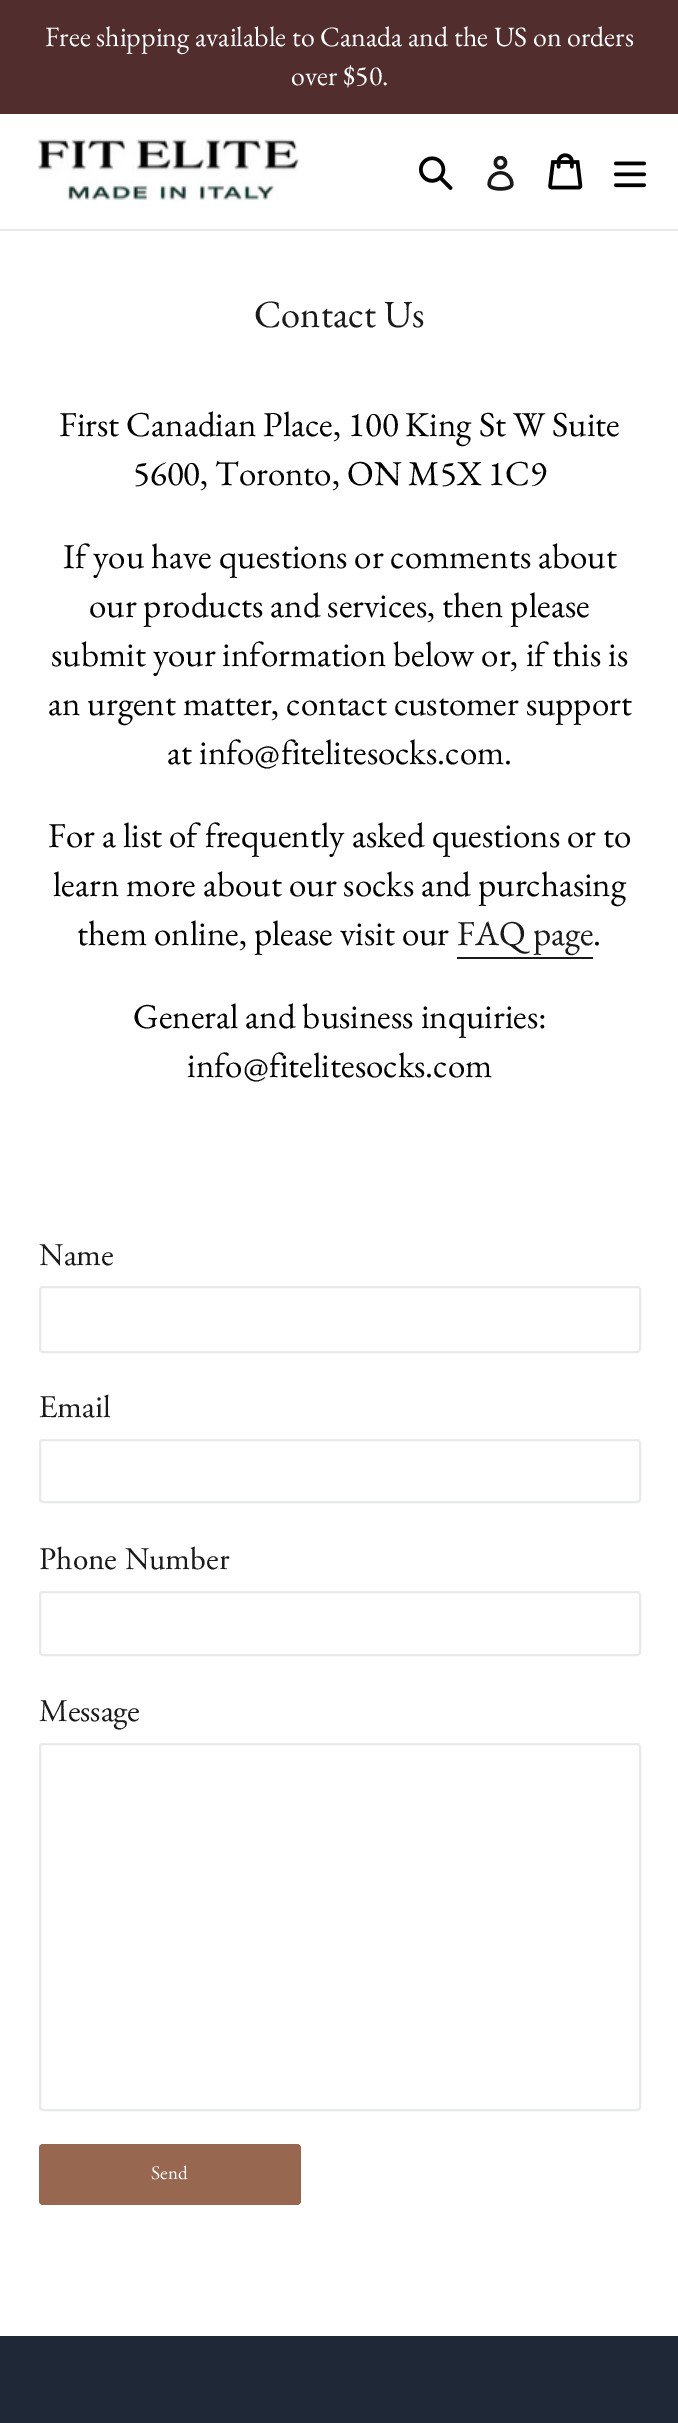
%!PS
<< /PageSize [678 2423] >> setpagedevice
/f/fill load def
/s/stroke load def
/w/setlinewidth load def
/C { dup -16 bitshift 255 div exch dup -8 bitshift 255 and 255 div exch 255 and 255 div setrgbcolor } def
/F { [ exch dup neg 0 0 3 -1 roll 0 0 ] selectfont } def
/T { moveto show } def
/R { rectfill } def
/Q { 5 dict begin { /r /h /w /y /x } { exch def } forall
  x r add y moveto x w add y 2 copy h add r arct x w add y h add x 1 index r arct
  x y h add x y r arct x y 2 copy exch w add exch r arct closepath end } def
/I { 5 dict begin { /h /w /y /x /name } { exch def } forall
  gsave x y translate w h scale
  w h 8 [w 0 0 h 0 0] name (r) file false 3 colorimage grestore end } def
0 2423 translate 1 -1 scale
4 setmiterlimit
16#FFFFFF C
0 0 678 2423 R
16#512D2D C
0 0 678 114 R
/EBGaramond-Regular 28 F
16#FFFFFF C
(Free shipping available to Canada and the US on orders) 45 46 T
(over $50.) 291 85 T
16#E8E9EB C
0 229 678 2 R
(1.rgb) 38 139 261 62 I
(2.rgb) 419 156 34 34 I
(3.rgb) 487 156 27 35 I
(4.rgb) 548 153 35 37 I
(5.rgb) 613 161 34 27 I
/EBGaramond-Regular 38.5 F
16#1A1A1A C
(Contact Us) 254 327 T
/EBGaramond-Regular 35 F
16#000000 C
(First Canadian Place, 100 King St W Suite) 59 436 T
(5600, Toronto, ON M5X 1C9) 133 485 T
(If you have questions or comments about) 63 568 T
(our products and services, then please) 89 617 T
(submit your information below or, if this is) 51 666 T
(an urgent matter, contact customer support) 48 715 T
(at info@fitelitesocks.com.) 167 764 T
(For a list of frequently asked questions or to) 48 847 T
(learn more about our socks and purchasing) 53 896 T
(them online, please visit our) 77 945 T
16#1A1A1A C
(FAQ page) 457 945 T
457 957 136 2 R
16#000000 C
(.) 593 945 T
(General and business inquiries:) 133 1028 T
(info@fitelitesocks.com) 187 1077 T
/AdobeGaramond-Regular 31.5 F
16#1A1A1A C
(Name) 39 1265 T
16#E8E9EB C
2 w
40 1287 600 65 3 Q s
16#1A1A1A C
(Email) 39 1417 T
16#E8E9EB C
40 1440 600 62 3 Q s
16#1A1A1A C
(Phone Number) 39 1569 T
16#E8E9EB C
40 1592 600 63 3 Q s
16#1A1A1A C
(Message) 39 1721 T
16#E8E9EB C
40 1744 600 366 3 Q s
16#976750 C
39 2144 262 61 4 Q f
/AdobeGaramond-Regular 19 F
16#FFFFFF C
(Send) 151 2179 T
16#1E2837 C
0 2336 678 87 R
showpage
